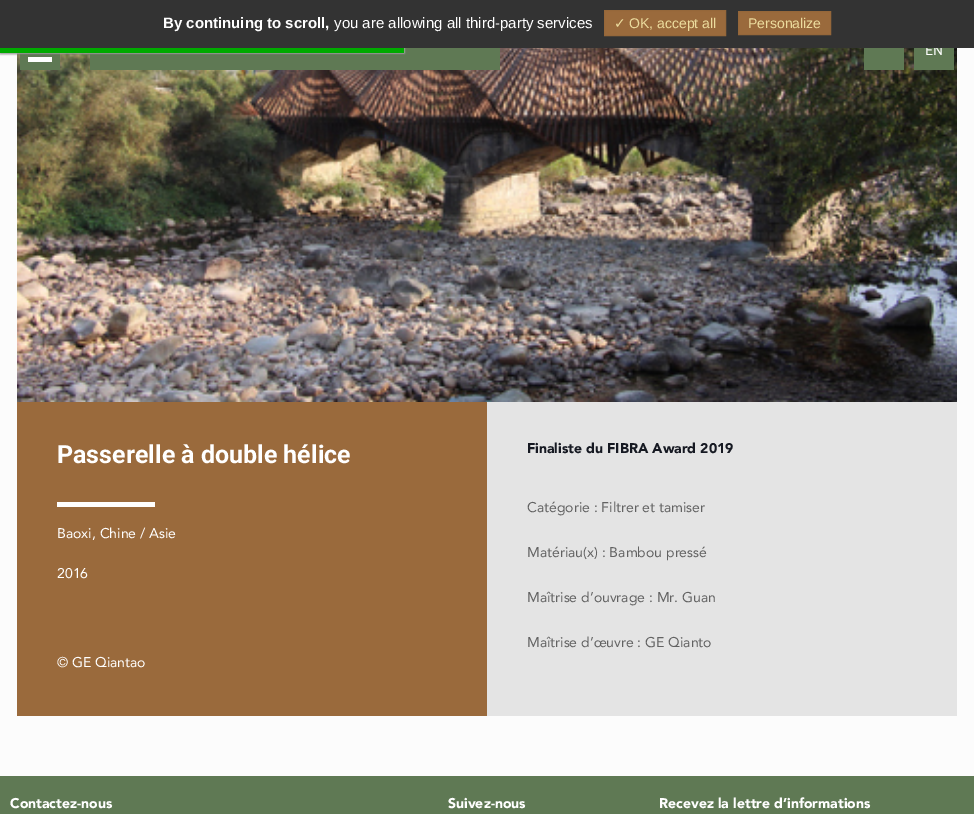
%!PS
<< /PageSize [974 814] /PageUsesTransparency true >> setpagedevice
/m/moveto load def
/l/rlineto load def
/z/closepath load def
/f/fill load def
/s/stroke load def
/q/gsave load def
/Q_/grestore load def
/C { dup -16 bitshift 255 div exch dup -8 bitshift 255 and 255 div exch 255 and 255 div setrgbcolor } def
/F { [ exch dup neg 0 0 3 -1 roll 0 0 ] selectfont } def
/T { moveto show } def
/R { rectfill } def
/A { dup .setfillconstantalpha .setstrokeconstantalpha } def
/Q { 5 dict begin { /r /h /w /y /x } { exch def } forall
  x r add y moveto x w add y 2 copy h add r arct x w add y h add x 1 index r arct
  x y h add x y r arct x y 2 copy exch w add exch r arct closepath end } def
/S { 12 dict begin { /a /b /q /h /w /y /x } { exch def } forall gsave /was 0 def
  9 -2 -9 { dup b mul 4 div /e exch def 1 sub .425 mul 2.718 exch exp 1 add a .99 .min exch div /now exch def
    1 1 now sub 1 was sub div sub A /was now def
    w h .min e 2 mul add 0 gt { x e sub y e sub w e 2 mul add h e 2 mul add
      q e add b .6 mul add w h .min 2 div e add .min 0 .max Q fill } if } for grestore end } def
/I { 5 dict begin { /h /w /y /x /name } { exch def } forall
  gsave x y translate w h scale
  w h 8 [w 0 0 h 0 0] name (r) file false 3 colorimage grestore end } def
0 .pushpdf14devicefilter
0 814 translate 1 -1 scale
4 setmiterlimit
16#FCFCFC C
0 0 974 814 R
(2.rgb) 17 48 940 354 I
16#5F7954 C
20 53 40 17 R
(1.rgb) 28 53 24 9 I
90 48 410 22 R
16#555555 C
0 49 404 5 0 1 1 S
16#FFFFFF C
0 48 404 5 0 1 1 S
16#5F7954 C
914 48 40 22 R
/Roboto-Regular 14 F
16#FFFFFF C
(EN) 925 55 T
16#333333 C
0 0 974 48 R
/LiberationSans-Bold 15 F
16#FFFFFF C
(By continuing to scroll,) 163 28 T
/LiberationSans-Regular 15 F
(you are allowing all third-party services) 334 28 T
16#9A6A3C C
604.5 10.5 m 121 0 l 0 25 l -121 0 l z q f Q_
16#95673A C
s
/DejaVuSans-Regular 14 F
16#ECDC9E C
(✓) 614 28 T
/LiberationSans-Regular 14 F
(OK, accept all) 629 28 T
16#9A6A3C C
738.5 11.5 m 92 0 l 0 23 l -92 0 l z q f Q_
16#95673A C
s
16#ECDC9E C
(Personalize) 748 28 T
16#00AA00 C
0 48 404 5 R
16#5F7954 C
864 48 40 22 R
16#9A6A3C C
17 402 470 314 R
/Roboto-Bold 25 F
16#FFFFFF C
(Passerelle à double hélice) 57 463 T
57 502 98 5 R
/Avenir-Regular 14 F
(Baoxi, Chine / Asie) 57 538 T
(2016) 57 578 T
(© GE Qiantao) 57 667 T
16#E4E4E4 C
487 402 470 314 R
/Avenir-Black 14 F
16#161922 C
(Finaliste du FIBRA Award 2019) 527 453 T
/Avenir-Regular 14 F
16#626262 C
(Catégorie : Filtrer et tamiser) 527 512 T
(Matériau\(x\) : Bambou pressé) 527 557 T
(Maîtrise d’ouvrage : Mr. Guan) 527 602 T
(Maîtrise d’œuvre : GE Qianto) 527 647 T
16#5F7954 C
0 776 974 38 R
/Avenir-Black 14 F
16#FFFFFF C
(Contactez-nous) 10 808 T
(Suivez-nous) 448 808 T
(Recevez la lettre d’informations) 659 808 T
.poppdf14devicefilter showpage
